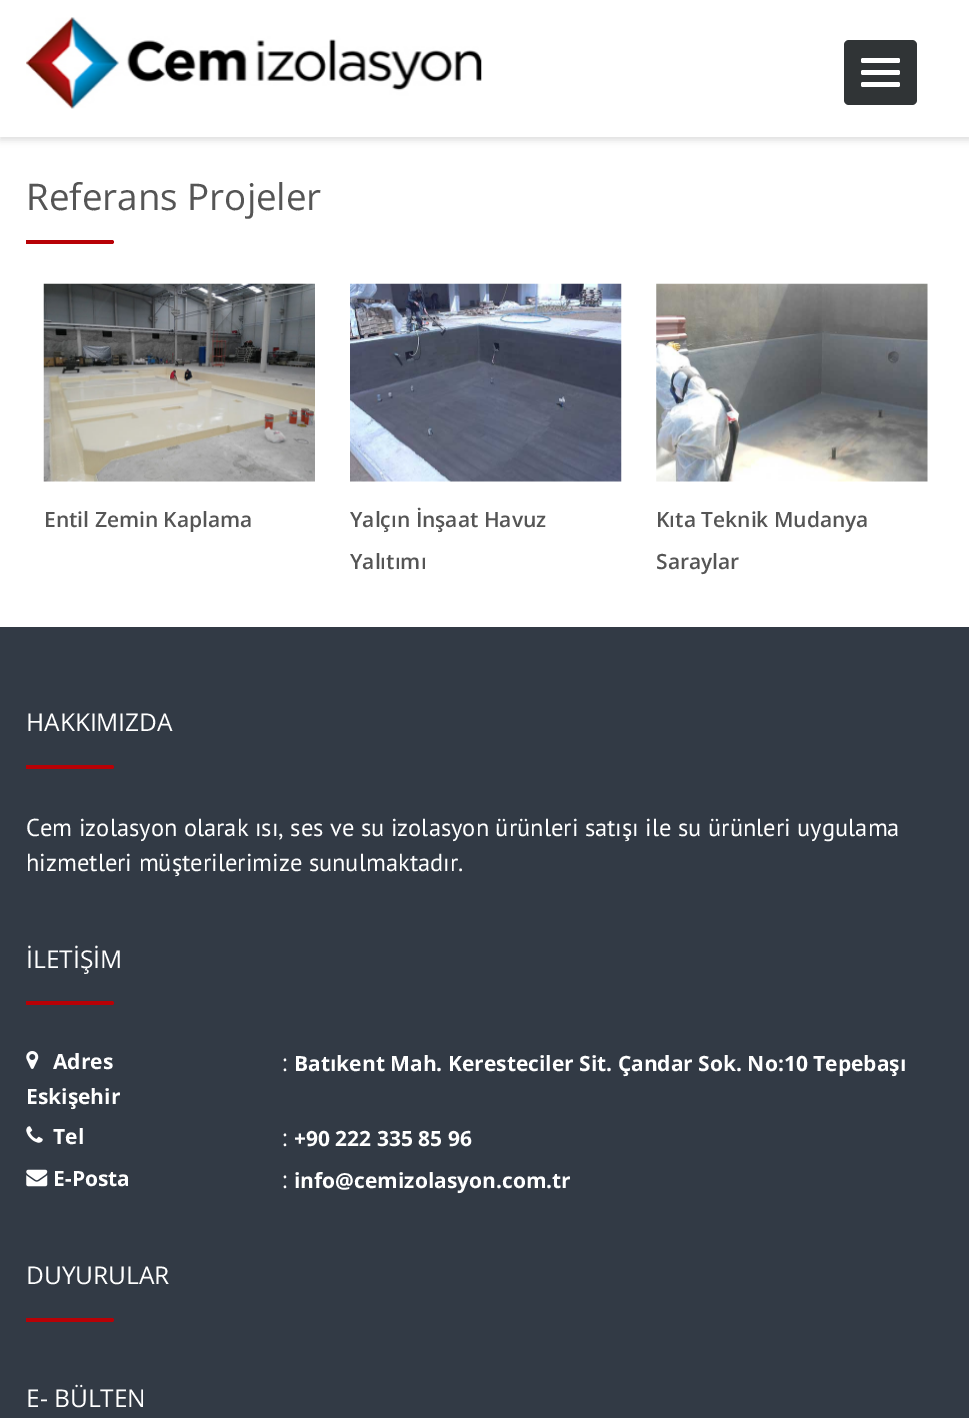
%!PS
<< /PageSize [969 1418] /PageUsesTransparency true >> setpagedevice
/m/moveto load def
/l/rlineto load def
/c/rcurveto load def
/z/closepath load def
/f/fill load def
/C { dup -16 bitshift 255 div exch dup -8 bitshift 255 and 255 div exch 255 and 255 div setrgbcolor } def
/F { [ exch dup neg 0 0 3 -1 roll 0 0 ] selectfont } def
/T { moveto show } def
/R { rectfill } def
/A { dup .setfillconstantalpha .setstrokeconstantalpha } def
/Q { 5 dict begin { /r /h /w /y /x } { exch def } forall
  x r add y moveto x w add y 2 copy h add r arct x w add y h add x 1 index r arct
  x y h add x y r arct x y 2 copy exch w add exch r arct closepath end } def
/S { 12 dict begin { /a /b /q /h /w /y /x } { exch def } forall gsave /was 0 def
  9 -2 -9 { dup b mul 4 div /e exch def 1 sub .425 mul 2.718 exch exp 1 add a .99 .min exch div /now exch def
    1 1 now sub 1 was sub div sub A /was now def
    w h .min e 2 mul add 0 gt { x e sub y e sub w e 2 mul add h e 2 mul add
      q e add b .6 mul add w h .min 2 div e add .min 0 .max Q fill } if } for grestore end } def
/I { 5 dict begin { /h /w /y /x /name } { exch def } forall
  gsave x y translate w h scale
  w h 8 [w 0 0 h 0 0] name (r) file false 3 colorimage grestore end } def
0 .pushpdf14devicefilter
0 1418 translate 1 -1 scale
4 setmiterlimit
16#FFFFFF C
0 0 969 1418 R
16#DDDDDD C
0 4 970 136 0 3.5 1 S
16#FFFFFF C
0 0 969 137 R
(1.rgb) 26 17 456 92 I
16#303436 C
844 40 73 65 5 Q f
16#FFFFFF C
861 58 39 5 2 Q f
861 70 39 5 2 Q f
861 82 39 5 2 Q f
/OpenSans-Regular 36.75 F
16#555555 C
(Referans Projeler) 26 210 T
16#B80106 C
26 240 m 86 0 l 1 0 2 1 2 2 c 0 1 -1 2 -2 2 c -86 0 l z f
(2.rgb) 43 283 272 199 I
/OpenSans-SemiBold 21 F
16#555555 C
(Entil Zemin Kaplama) 44 527 T
(3.rgb) 350 283 272 199 I
(Yalçın İnşaat Havuz) 350 527 T
(Yalıtımı) 350 569 T
(4.rgb) 656 283 272 199 I
(Kıta Teknik Mudanya) 656 527 T
(Saraylar) 656 569 T
16#323A45 C
0 627 969 791 R
/OpenSans-Regular 24.5 F
16#FFFFFF C
(HAKKIMIZDA) 26 731 T
16#B80106 C
26 765 m 86 0 l 1 0 2 1 2 2 c 0 1 -1 2 -2 2 c -86 0 l z f
/PTSans-Regular 24.5 F
16#FFFFFF C
(Cem izolasyon olarak ısı, ses ve su izolasyon ürünleri satışı ile su ürünleri uygulama) 26 836 T
(hizmetleri müşterilerimize sunulmaktadır.) 26 871 T
/OpenSans-Regular 24.5 F
(İLETİŞİM) 26 968 T
16#B80106 C
26 1001 m 86 0 l 1 0 2 1 2 2 c 0 1 -1 2 -2 2 c -86 0 l z f
(5.rgb) 26 1051 13 18 I
/OpenSans-Bold 21 F
16#FFFFFF C
(Adres) 53 1069 T
/OpenSans-Regular 23 F
(:) 282 1071 T
/OpenSans-Bold 21 F
(Batıkent Mah. Keresteciler Sit. Çandar Sok. No:10 Tepebaşı) 294 1071 T
(Eskişehir) 26 1104 T
(6.rgb) 26 1126 17 17 I
(Tel) 53 1144 T
/OpenSans-Regular 23 F
(:) 282 1146 T
/OpenSans-Bold 21 F
(+90 222 335 85 96) 294 1146 T
(7.rgb) 26 1169 22 18 I
(E-Posta) 53 1186 T
/OpenSans-Regular 23 F
(:) 282 1188 T
/OpenSans-Bold 21 F
(info@cemizolasyon.com.tr) 294 1188 T
/OpenSans-Regular 24.5 F
(DUYURULAR) 26 1284 T
16#B80106 C
26 1318 m 86 0 l 1 0 2 1 2 2 c 0 1 -1 2 -2 2 c -86 0 l z f
16#FFFFFF C
(E- BÜLTEN) 26 1407 T
.poppdf14devicefilter showpage
